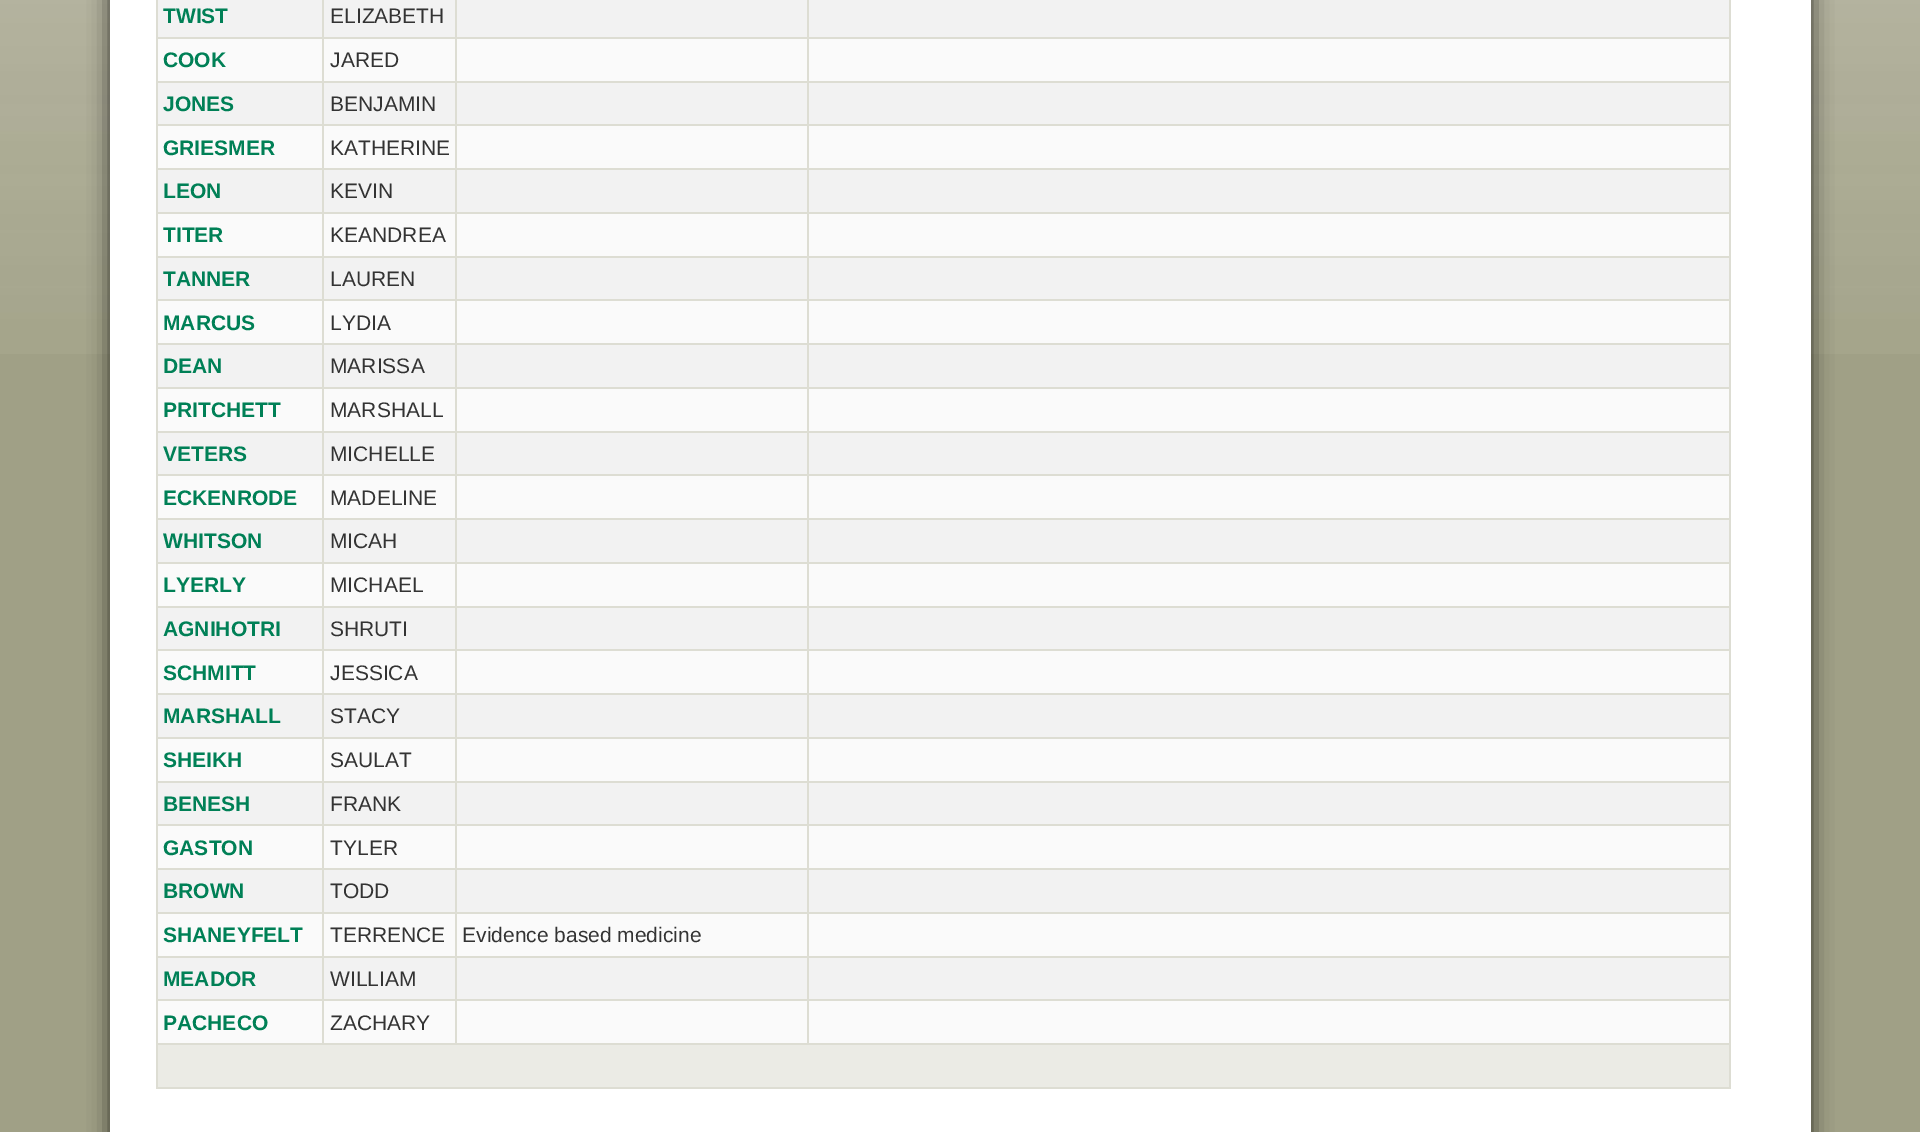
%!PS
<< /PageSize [1920 1132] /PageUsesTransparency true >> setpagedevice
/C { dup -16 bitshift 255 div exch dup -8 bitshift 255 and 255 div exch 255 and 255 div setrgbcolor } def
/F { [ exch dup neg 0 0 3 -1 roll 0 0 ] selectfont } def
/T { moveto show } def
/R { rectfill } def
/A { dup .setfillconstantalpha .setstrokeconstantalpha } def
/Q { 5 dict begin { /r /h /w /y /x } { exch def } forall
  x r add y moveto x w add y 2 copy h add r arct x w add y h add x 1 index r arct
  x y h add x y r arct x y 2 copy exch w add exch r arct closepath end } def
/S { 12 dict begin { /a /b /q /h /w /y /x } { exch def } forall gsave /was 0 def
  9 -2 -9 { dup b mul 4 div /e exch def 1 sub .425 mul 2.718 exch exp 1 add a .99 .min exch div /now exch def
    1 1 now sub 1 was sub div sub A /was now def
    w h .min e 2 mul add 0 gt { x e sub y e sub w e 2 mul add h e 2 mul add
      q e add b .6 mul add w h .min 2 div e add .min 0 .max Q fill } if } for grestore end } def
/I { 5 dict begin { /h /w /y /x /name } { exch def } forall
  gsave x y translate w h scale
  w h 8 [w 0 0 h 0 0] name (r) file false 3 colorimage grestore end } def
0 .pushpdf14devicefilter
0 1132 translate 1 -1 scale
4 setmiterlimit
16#A0A086 C
0 0 1920 1132 R
(1.rgb) 0 0 1920 354 I
16#000000 C
110 -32 1701 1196 0 10.5 .7 S
16#FFFFFF C
110 0 1701 1132 R
16#DDDDD3 C
156 1087 1575 2 R
156 0 2 1089 R
16#F2F2F2 C
158 0 164 37 R
/LiberationSans-Bold 21 F
16#008056 C
(TWIST) 163 23 T
16#F2F2F2 C
324 0 131 37 R
/LiberationSans-Regular 21 F
16#333333 C
(ELIZABETH) 330 23 T
16#F2F2F2 C
457 0 350 37 R
809 0 920 37 R
16#FAFAFA C
809 39 920 42 R
16#DDDDD3 C
156 37 1575 2 R
156 81 1575 2 R
156 124 1575 2 R
156 168 1575 2 R
156 212 1575 2 R
156 256 1575 2 R
156 299 1575 2 R
156 343 1575 2 R
156 387 1575 2 R
156 431 1575 2 R
156 474 1575 2 R
156 518 1575 2 R
156 562 1575 2 R
156 606 1575 2 R
156 649 1575 2 R
156 693 1575 2 R
156 737 1575 2 R
156 781 1575 2 R
156 824 1575 2 R
156 868 1575 2 R
156 912 1575 2 R
156 956 1575 2 R
156 999 1575 2 R
156 1043 1575 2 R
1729 1043 2 46 R
1729 999 2 46 R
1729 956 2 45 R
1729 912 2 45 R
1729 868 2 46 R
1729 824 2 46 R
1729 781 2 45 R
1729 737 2 45 R
1729 693 2 46 R
1729 649 2 46 R
1729 606 2 45 R
1729 562 2 45 R
1729 518 2 46 R
1729 474 2 46 R
1729 431 2 45 R
1729 387 2 45 R
1729 343 2 46 R
1729 299 2 46 R
1729 256 2 45 R
1729 212 2 45 R
1729 168 2 46 R
1729 124 2 46 R
1729 81 2 45 R
1729 0 2 82 R
16#FAFAFA C
158 39 164 42 R
16#DDDDD3 C
322 999 2 46 R
322 956 2 45 R
322 912 2 45 R
322 868 2 46 R
322 824 2 46 R
322 781 2 45 R
322 737 2 45 R
322 693 2 46 R
322 649 2 46 R
322 606 2 45 R
322 562 2 45 R
322 518 2 46 R
322 474 2 46 R
322 431 2 45 R
322 387 2 45 R
322 343 2 46 R
322 299 2 46 R
322 256 2 45 R
322 212 2 45 R
322 168 2 46 R
322 124 2 46 R
322 81 2 45 R
322 0 2 82 R
/LiberationSans-Bold 21 F
16#008056 C
(COOK) 163 67 T
16#FAFAFA C
324 39 131 42 R
16#DDDDD3 C
455 999 2 46 R
455 956 2 45 R
455 912 2 45 R
455 868 2 46 R
455 824 2 46 R
455 781 2 45 R
455 737 2 45 R
455 693 2 46 R
455 649 2 46 R
455 606 2 45 R
455 562 2 45 R
455 518 2 46 R
455 474 2 46 R
455 431 2 45 R
455 387 2 45 R
455 343 2 46 R
455 299 2 46 R
455 256 2 45 R
455 212 2 45 R
455 168 2 46 R
455 124 2 46 R
455 81 2 45 R
455 0 2 82 R
/LiberationSans-Regular 21 F
16#333333 C
(JARED) 330 67 T
16#FAFAFA C
457 39 350 42 R
16#DDDDD3 C
807 999 2 46 R
807 956 2 45 R
807 912 2 45 R
807 868 2 46 R
807 824 2 46 R
807 781 2 45 R
807 737 2 45 R
807 693 2 46 R
807 649 2 46 R
807 606 2 45 R
807 562 2 45 R
807 518 2 46 R
807 474 2 46 R
807 431 2 45 R
807 387 2 45 R
807 343 2 46 R
807 299 2 46 R
807 256 2 45 R
807 212 2 45 R
807 168 2 46 R
807 124 2 46 R
807 81 2 45 R
807 0 2 82 R
16#F2F2F2 C
809 83 920 41 R
158 83 164 41 R
/LiberationSans-Bold 21 F
16#008056 C
(JONES) 163 111 T
16#F2F2F2 C
324 83 131 41 R
/LiberationSans-Regular 21 F
16#333333 C
(BENJAMIN) 330 111 T
16#F2F2F2 C
457 83 350 41 R
16#FAFAFA C
809 126 920 42 R
158 126 164 42 R
/LiberationSans-Bold 21 F
16#008056 C
(GRIESMER) 163 155 T
16#FAFAFA C
324 126 131 42 R
/LiberationSans-Regular 21 F
16#333333 C
(KATHERINE) 330 155 T
16#FAFAFA C
457 126 350 42 R
16#F2F2F2 C
809 170 920 42 R
158 170 164 42 R
/LiberationSans-Bold 21 F
16#008056 C
(LEON) 163 198 T
16#F2F2F2 C
324 170 131 42 R
/LiberationSans-Regular 21 F
16#333333 C
(KEVIN) 330 198 T
16#F2F2F2 C
457 170 350 42 R
16#FAFAFA C
809 214 920 42 R
158 214 164 42 R
/LiberationSans-Bold 21 F
16#008056 C
(TITER) 163 242 T
16#FAFAFA C
324 214 131 42 R
/LiberationSans-Regular 21 F
16#333333 C
(KEANDREA) 330 242 T
16#FAFAFA C
457 214 350 42 R
16#F2F2F2 C
809 258 920 41 R
158 258 164 41 R
/LiberationSans-Bold 21 F
16#008056 C
(TANNER) 163 286 T
16#F2F2F2 C
324 258 131 41 R
/LiberationSans-Regular 21 F
16#333333 C
(LAUREN) 330 286 T
16#F2F2F2 C
457 258 350 41 R
16#FAFAFA C
809 301 920 42 R
158 301 164 42 R
/LiberationSans-Bold 21 F
16#008056 C
(MARCUS) 163 330 T
16#FAFAFA C
324 301 131 42 R
/LiberationSans-Regular 21 F
16#333333 C
(LYDIA) 330 330 T
16#FAFAFA C
457 301 350 42 R
16#F2F2F2 C
809 345 920 42 R
158 345 164 42 R
/LiberationSans-Bold 21 F
16#008056 C
(DEAN) 163 373 T
16#F2F2F2 C
324 345 131 42 R
/LiberationSans-Regular 21 F
16#333333 C
(MARISSA) 330 373 T
16#F2F2F2 C
457 345 350 42 R
16#FAFAFA C
809 389 920 42 R
158 389 164 42 R
/LiberationSans-Bold 21 F
16#008056 C
(PRITCHETT) 163 417 T
16#FAFAFA C
324 389 131 42 R
/LiberationSans-Regular 21 F
16#333333 C
(MARSHALL) 330 417 T
16#FAFAFA C
457 389 350 42 R
16#F2F2F2 C
809 433 920 41 R
158 433 164 41 R
/LiberationSans-Bold 21 F
16#008056 C
(VETERS) 163 461 T
16#F2F2F2 C
324 433 131 41 R
/LiberationSans-Regular 21 F
16#333333 C
(MICHELLE) 330 461 T
16#F2F2F2 C
457 433 350 41 R
16#FAFAFA C
809 476 920 42 R
158 476 164 42 R
/LiberationSans-Bold 21 F
16#008056 C
(ECKENRODE) 163 505 T
16#FAFAFA C
324 476 131 42 R
/LiberationSans-Regular 21 F
16#333333 C
(MADELINE) 330 505 T
16#FAFAFA C
457 476 350 42 R
16#F2F2F2 C
809 520 920 42 R
158 520 164 42 R
/LiberationSans-Bold 21 F
16#008056 C
(WHITSON) 163 548 T
16#F2F2F2 C
324 520 131 42 R
/LiberationSans-Regular 21 F
16#333333 C
(MICAH) 330 548 T
16#F2F2F2 C
457 520 350 42 R
16#FAFAFA C
809 564 920 42 R
158 564 164 42 R
/LiberationSans-Bold 21 F
16#008056 C
(LYERLY) 163 592 T
16#FAFAFA C
324 564 131 42 R
/LiberationSans-Regular 21 F
16#333333 C
(MICHAEL) 330 592 T
16#FAFAFA C
457 564 350 42 R
16#F2F2F2 C
809 608 920 41 R
158 608 164 41 R
/LiberationSans-Bold 21 F
16#008056 C
(AGNIHOTRI) 163 636 T
16#F2F2F2 C
324 608 131 41 R
/LiberationSans-Regular 21 F
16#333333 C
(SHRUTI) 330 636 T
16#F2F2F2 C
457 608 350 41 R
16#FAFAFA C
809 651 920 42 R
158 651 164 42 R
/LiberationSans-Bold 21 F
16#008056 C
(SCHMITT) 163 680 T
16#FAFAFA C
324 651 131 42 R
/LiberationSans-Regular 21 F
16#333333 C
(JESSICA) 330 680 T
16#FAFAFA C
457 651 350 42 R
16#F2F2F2 C
809 695 920 42 R
158 695 164 42 R
/LiberationSans-Bold 21 F
16#008056 C
(MARSHALL) 163 723 T
16#F2F2F2 C
324 695 131 42 R
/LiberationSans-Regular 21 F
16#333333 C
(STACY) 330 723 T
16#F2F2F2 C
457 695 350 42 R
16#FAFAFA C
809 739 920 42 R
158 739 164 42 R
/LiberationSans-Bold 21 F
16#008056 C
(SHEIKH) 163 767 T
16#FAFAFA C
324 739 131 42 R
/LiberationSans-Regular 21 F
16#333333 C
(SAULAT) 330 767 T
16#FAFAFA C
457 739 350 42 R
16#F2F2F2 C
809 783 920 41 R
158 783 164 41 R
/LiberationSans-Bold 21 F
16#008056 C
(BENESH) 163 811 T
16#F2F2F2 C
324 783 131 41 R
/LiberationSans-Regular 21 F
16#333333 C
(FRANK) 330 811 T
16#F2F2F2 C
457 783 350 41 R
16#FAFAFA C
809 826 920 42 R
158 826 164 42 R
/LiberationSans-Bold 21 F
16#008056 C
(GASTON) 163 855 T
16#FAFAFA C
324 826 131 42 R
/LiberationSans-Regular 21 F
16#333333 C
(TYLER) 330 855 T
16#FAFAFA C
457 826 350 42 R
16#F2F2F2 C
809 870 920 42 R
158 870 164 42 R
/LiberationSans-Bold 21 F
16#008056 C
(BROWN) 163 898 T
16#F2F2F2 C
324 870 131 42 R
/LiberationSans-Regular 21 F
16#333333 C
(TODD) 330 898 T
16#F2F2F2 C
457 870 350 42 R
16#FAFAFA C
809 914 920 42 R
158 914 164 42 R
/LiberationSans-Bold 21 F
16#008056 C
(SHANEYFELT) 163 942 T
16#FAFAFA C
324 914 131 42 R
/LiberationSans-Regular 21 F
16#333333 C
(TERRENCE) 330 942 T
16#FAFAFA C
457 914 350 42 R
16#333333 C
(Evidence based medicine) 462 942 T
16#F2F2F2 C
809 958 920 41 R
158 958 164 41 R
/LiberationSans-Bold 21 F
16#008056 C
(MEADOR) 163 986 T
16#F2F2F2 C
324 958 131 41 R
/LiberationSans-Regular 21 F
16#333333 C
(WILLIAM) 330 986 T
16#F2F2F2 C
457 958 350 41 R
16#FAFAFA C
809 1001 920 42 R
158 1001 164 42 R
/LiberationSans-Bold 21 F
16#008056 C
(PACHECO) 163 1030 T
16#FAFAFA C
324 1001 131 42 R
/LiberationSans-Regular 21 F
16#333333 C
(ZACHARY) 330 1030 T
16#FAFAFA C
457 1001 350 42 R
16#EBEBE5 C
158 1045 1571 42 R
.poppdf14devicefilter showpage
